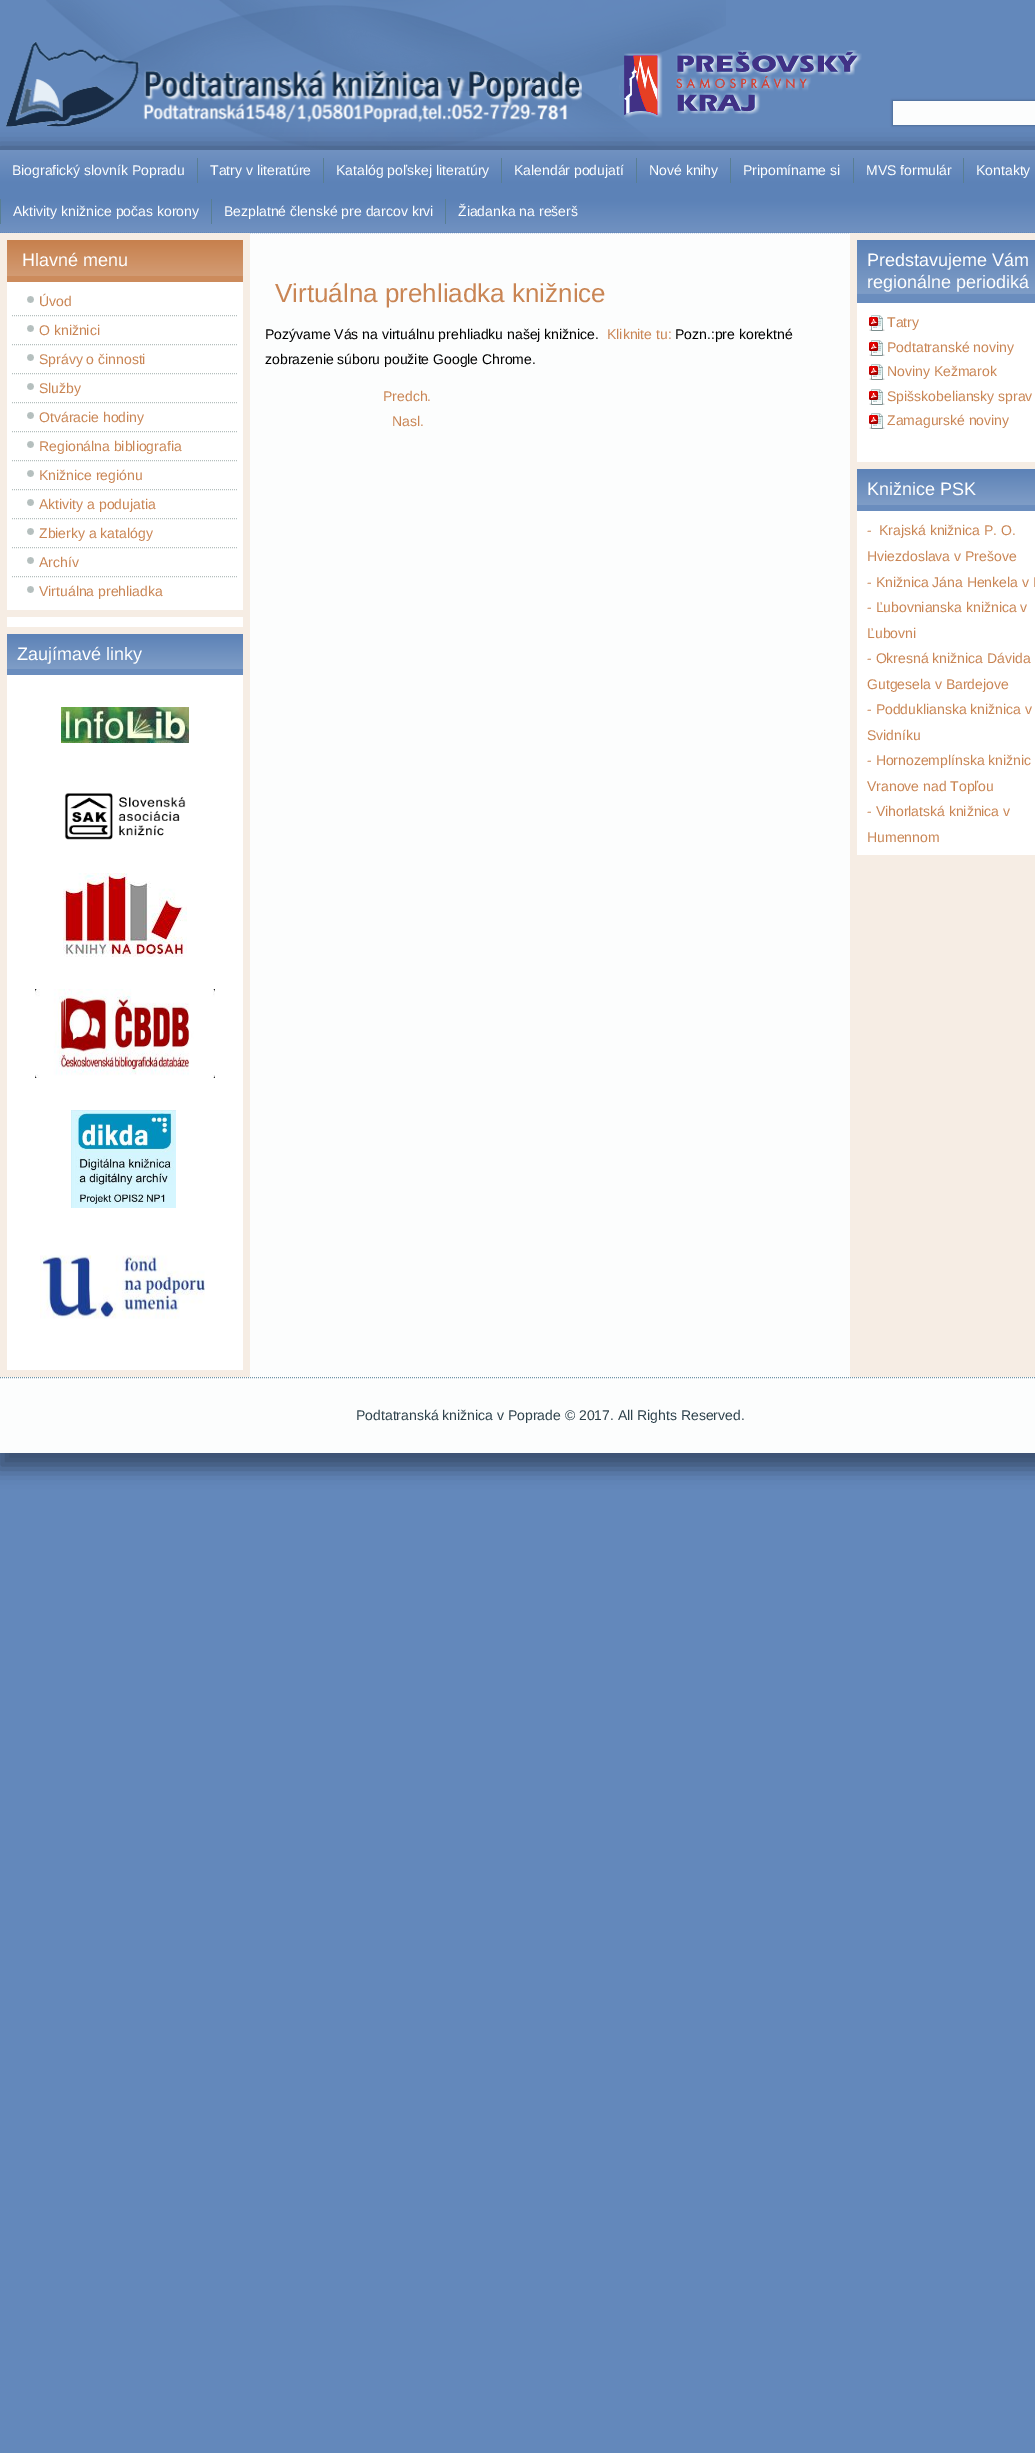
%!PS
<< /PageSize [1035 2453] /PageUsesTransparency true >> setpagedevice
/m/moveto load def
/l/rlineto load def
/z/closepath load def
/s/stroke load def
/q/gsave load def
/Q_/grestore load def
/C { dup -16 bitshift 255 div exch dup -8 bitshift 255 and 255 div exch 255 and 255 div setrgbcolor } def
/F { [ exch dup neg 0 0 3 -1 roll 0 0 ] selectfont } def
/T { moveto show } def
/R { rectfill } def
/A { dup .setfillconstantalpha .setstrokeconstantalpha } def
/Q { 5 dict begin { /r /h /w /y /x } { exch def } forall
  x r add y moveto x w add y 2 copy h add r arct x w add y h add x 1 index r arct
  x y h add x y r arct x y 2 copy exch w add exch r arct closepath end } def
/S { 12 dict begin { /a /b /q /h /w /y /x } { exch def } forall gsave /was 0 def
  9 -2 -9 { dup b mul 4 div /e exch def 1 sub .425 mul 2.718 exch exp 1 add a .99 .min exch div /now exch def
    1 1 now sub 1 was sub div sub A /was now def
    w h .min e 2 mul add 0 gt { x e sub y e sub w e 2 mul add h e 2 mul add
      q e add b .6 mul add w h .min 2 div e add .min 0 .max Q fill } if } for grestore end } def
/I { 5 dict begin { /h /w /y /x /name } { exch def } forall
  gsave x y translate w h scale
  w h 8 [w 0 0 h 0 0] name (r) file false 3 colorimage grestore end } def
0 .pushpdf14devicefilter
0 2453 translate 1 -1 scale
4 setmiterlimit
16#6388BB C
0 0 1035 2453 R
(1.rgb) 46 0 680 150 I
16#000000 C
-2 148 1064 1321 0 9 .4 S
(2.rgb) 6 41 856 86 I
892 100 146 26 0 1 .2 S
16#FCFDFD C
893 101 142 24 R
0 233 1035 1220 R
q 0 150 m 1035 0 l 0 83 l -1035 0 l z clip newpath
<< /ShadingType 2 /ColorSpace /DeviceRGB /Coords [550 150 550 233] /Extend [true true] /Function << /FunctionType 3 /Domain [0 1] /Functions [<< /FunctionType 2 /Domain [0 1] /C0 [.443 .573 .757] /C1 [.361 .51 .718] /N 1 >> << /FunctionType 2 /Domain [0 1] /C0 [.361 .51 .718] /C1 [.361 .51 .718] /N 1 >> << /FunctionType 2 /Domain [0 1] /C0 [.361 .51 .718] /C1 [.443 .573 .757] /N 1 >>] /Bounds [.4 .6] /Encode [0 1 0 1 0 1] >> >> shfill Q_
16#6388BB C
[1 1] 0 setdash
0 232.5 m 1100 0 l s
/LiberationSans-Regular 14 F
16#FFFFFF C
(Biografický slovník Popradu) 12 175 T
16#587E93 C
197 158 1 25 R
16#FFFFFF C
(Tatry v literatúre) 210 175 T
16#587E93 C
323 158 1 25 R
16#FFFFFF C
(Katalóg poľskej literatúry) 336 175 T
16#587E93 C
501 158 1 25 R
16#FFFFFF C
(Kalendár podujatí) 514 175 T
16#587E93 C
636 158 1 25 R
16#FFFFFF C
(Nové knihy) 649 175 T
16#587E93 C
730 158 1 25 R
16#FFFFFF C
(Pripomíname si) 743 175 T
16#587E93 C
853 158 1 25 R
16#FFFFFF C
(MVS formulár) 866 175 T
16#587E93 C
963 158 1 25 R
16#FFFFFF C
(Kontakty) 976 175 T
16#587E93 C
0 199 1 25 R
16#FFFFFF C
(Aktivity knižnice počas korony) 13 216 T
16#587E93 C
211 199 1 25 R
16#FFFFFF C
(Bezplatné členské pre darcov krvi) 224 216 T
16#587E93 C
445 199 1 25 R
16#FFFFFF C
(Žiadanka na rešerš) 458 216 T
16#F6EDE4 C
0 233 250 1144 R
16#FFFFFF C
7 282 236 328 R
q 7 240 m 236 0 l 0 42 l -236 0 l z clip newpath
<< /ShadingType 2 /ColorSpace /DeviceRGB /Coords [125 240 125 282] /Extend [true true] /Function << /FunctionType 3 /Domain [0 1] /Functions [<< /FunctionType 2 /Domain [0 1] /C0 [.78 .502 .302] /C1 [.827 .608 .451] /N 1 >> << /FunctionType 2 /Domain [0 1] /C0 [.827 .608 .451] /C1 [.8 .545 .361] /N 1 >> << /FunctionType 2 /Domain [0 1] /C0 [.8 .545 .361] /C1 [.8 .545 .361] /N 1 >>] /Bounds [.85 .86] /Encode [0 1 0 1 0 1] >> >> shfill Q_
/LiberationSans-Regular 18 F
(Hlavné menu) 22 266 T
(3.rgb) 27 296 7 7 I
/LiberationSans-Regular 14 F
16#C98554 C
(Úvod) 39 306 T
16#B5BFBE C
12 315.5 m 226 0 l s
(3.rgb) 27 325 7 7 I
16#C98554 C
(O knižnici) 39 335 T
16#B5BFBE C
12 344.5 m 226 0 l s
(3.rgb) 27 354 7 7 I
16#C98554 C
(Správy o činnosti) 39 364 T
16#B5BFBE C
12 373.5 m 226 0 l s
(3.rgb) 27 383 7 7 I
16#C98554 C
(Služby) 39 393 T
16#B5BFBE C
12 402.5 m 226 0 l s
(3.rgb) 27 412 7 7 I
16#C98554 C
(Otváracie hodiny) 39 422 T
16#B5BFBE C
12 431.5 m 226 0 l s
(3.rgb) 27 441 7 7 I
16#C98554 C
(Regionálna bibliografia) 39 451 T
16#B5BFBE C
12 460.5 m 226 0 l s
(3.rgb) 27 470 7 7 I
16#C98554 C
(Knižnice regiónu) 39 480 T
16#B5BFBE C
12 489.5 m 226 0 l s
(3.rgb) 27 499 7 7 I
16#C98554 C
(Aktivity a podujatia) 39 509 T
16#B5BFBE C
12 518.5 m 226 0 l s
(3.rgb) 27 528 7 7 I
16#C98554 C
(Zbierky a katalógy) 39 538 T
16#B5BFBE C
12 547.5 m 226 0 l s
(3.rgb) 27 557 7 7 I
16#C98554 C
(Archív) 39 567 T
16#B5BFBE C
12 576.5 m 226 0 l s
(3.rgb) 27 586 7 7 I
16#C98554 C
(Virtuálna prehliadka) 39 596 T
16#FFFFFF C
7 617 236 10 R
7 675 236 695 R
q 7 634 m 236 0 l 0 41 l -236 0 l z clip newpath
<< /ShadingType 2 /ColorSpace /DeviceRGB /Coords [125 634 125 675] /Extend [true true] /Function << /FunctionType 3 /Domain [0 1] /Functions [<< /FunctionType 2 /Domain [0 1] /C0 [.361 .51 .718] /C1 [.498 .616 .78] /N 1 >> << /FunctionType 2 /Domain [0 1] /C0 [.498 .616 .78] /C1 [.416 .553 .745] /N 1 >> << /FunctionType 2 /Domain [0 1] /C0 [.416 .553 .745] /C1 [.416 .553 .745] /N 1 >>] /Bounds [.85 .86] /Encode [0 1 0 1 0 1] >> >> shfill Q_
/LiberationSans-Regular 18 F
(Zaujímavé linky) 17 660 T
(4.rgb) 61 707 128 36 I
(5.rgb) 64 793 122 47 I
(6.rgb) 63 873 124 84 I
(7.rgb) 35 989 180 89 I
(8.rgb) 71 1110 105 98 I
(9.rgb) 40 1255 165 64 I
/LiberationSans-Regular 26 F
16#C98554 C
(Virtuálna prehliadka knižnice) 275 302 T
/LiberationSans-Regular 14 F
16#000000 C
(Pozývame Vás na virtuálnu prehliadku našej knižnice.) 265 339 T
16#C98554 C
(Kliknite tu:) 607 339 T
16#000000 C
(Pozn.:pre korektné) 675 339 T
(zobrazenie súboru použite Google Chrome.) 265 364 T
16#C98554 C
(Predch.) 383 401 T
(Nasl.) 392 426 T
16#F6EDE4 C
850 233 185 1144 R
16#FFFFFF C
857 303 178 159 R
q 857 240 m 178 0 l 0 63 l -178 0 l z clip newpath
<< /ShadingType 2 /ColorSpace /DeviceRGB /Coords [975 240 975 303] /Extend [true true] /Function << /FunctionType 3 /Domain [0 1] /Functions [<< /FunctionType 2 /Domain [0 1] /C0 [.361 .51 .718] /C1 [.498 .616 .78] /N 1 >> << /FunctionType 2 /Domain [0 1] /C0 [.498 .616 .78] /C1 [.416 .553 .745] /N 1 >> << /FunctionType 2 /Domain [0 1] /C0 [.416 .553 .745] /C1 [.416 .553 .745] /N 1 >>] /Bounds [.85 .86] /Encode [0 1 0 1 0 1] >> >> shfill Q_
/LiberationSans-Regular 18 F
(Predstavujeme Vám) 867 266 T
(regionálne periodiká) 867 288 T
(10.rgb) 869 315 16 16 I
/LiberationSans-Regular 14 F
16#C98554 C
(Tatry) 887 327 T
(10.rgb) 869 340 16 16 I
(Podtatranské noviny) 887 352 T
(10.rgb) 869 364 16 16 I
(Noviny Kežmarok) 887 376 T
(10.rgb) 869 389 16 16 I
(Spišskobeliansky sprav) 887 401 T
(10.rgb) 869 413 16 16 I
(Zamagurské noviny) 887 425 T
16#FFFFFF C
857 511 178 344 R
q 857 469 m 178 0 l 0 42 l -178 0 l z clip newpath
<< /ShadingType 2 /ColorSpace /DeviceRGB /Coords [975 469 975 511] /Extend [true true] /Function << /FunctionType 3 /Domain [0 1] /Functions [<< /FunctionType 2 /Domain [0 1] /C0 [.361 .51 .718] /C1 [.498 .616 .78] /N 1 >> << /FunctionType 2 /Domain [0 1] /C0 [.498 .616 .78] /C1 [.416 .553 .745] /N 1 >> << /FunctionType 2 /Domain [0 1] /C0 [.416 .553 .745] /C1 [.416 .553 .745] /N 1 >>] /Bounds [.85 .86] /Encode [0 1 0 1 0 1] >> >> shfill Q_
/LiberationSans-Regular 18 F
(Knižnice PSK) 867 495 T
/LiberationSans-Regular 14 F
16#C98554 C
(-) 867 535 T
(Krajská knižnica P. O.) 879 535 T
(Hviezdoslava v Prešove) 867 561 T
(- Knižnica Jána Henkela v L) 867 587 T
(- Ľubovnianska knižnica v) 867 612 T
(Ľubovni) 867 638 T
(- Okresná knižnica Dávida) 867 663 T
(Gutgesela v Bardejove) 867 689 T
(- Podduklianska knižnica v) 867 714 T
(Svidníku) 867 740 T
(- Hornozemplínska knižnic) 867 765 T
(Vranove nad Topľou) 867 791 T
(- Vihorlatská knižnica v) 867 816 T
(Humennom) 867 842 T
16#7095A9 C
0 1377.5 m 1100 0 l s
16#2E424C C
(Podtatranská knižnica v Poprade © 2017. All Rights Reserved.) 356 1420 T
.poppdf14devicefilter showpage
